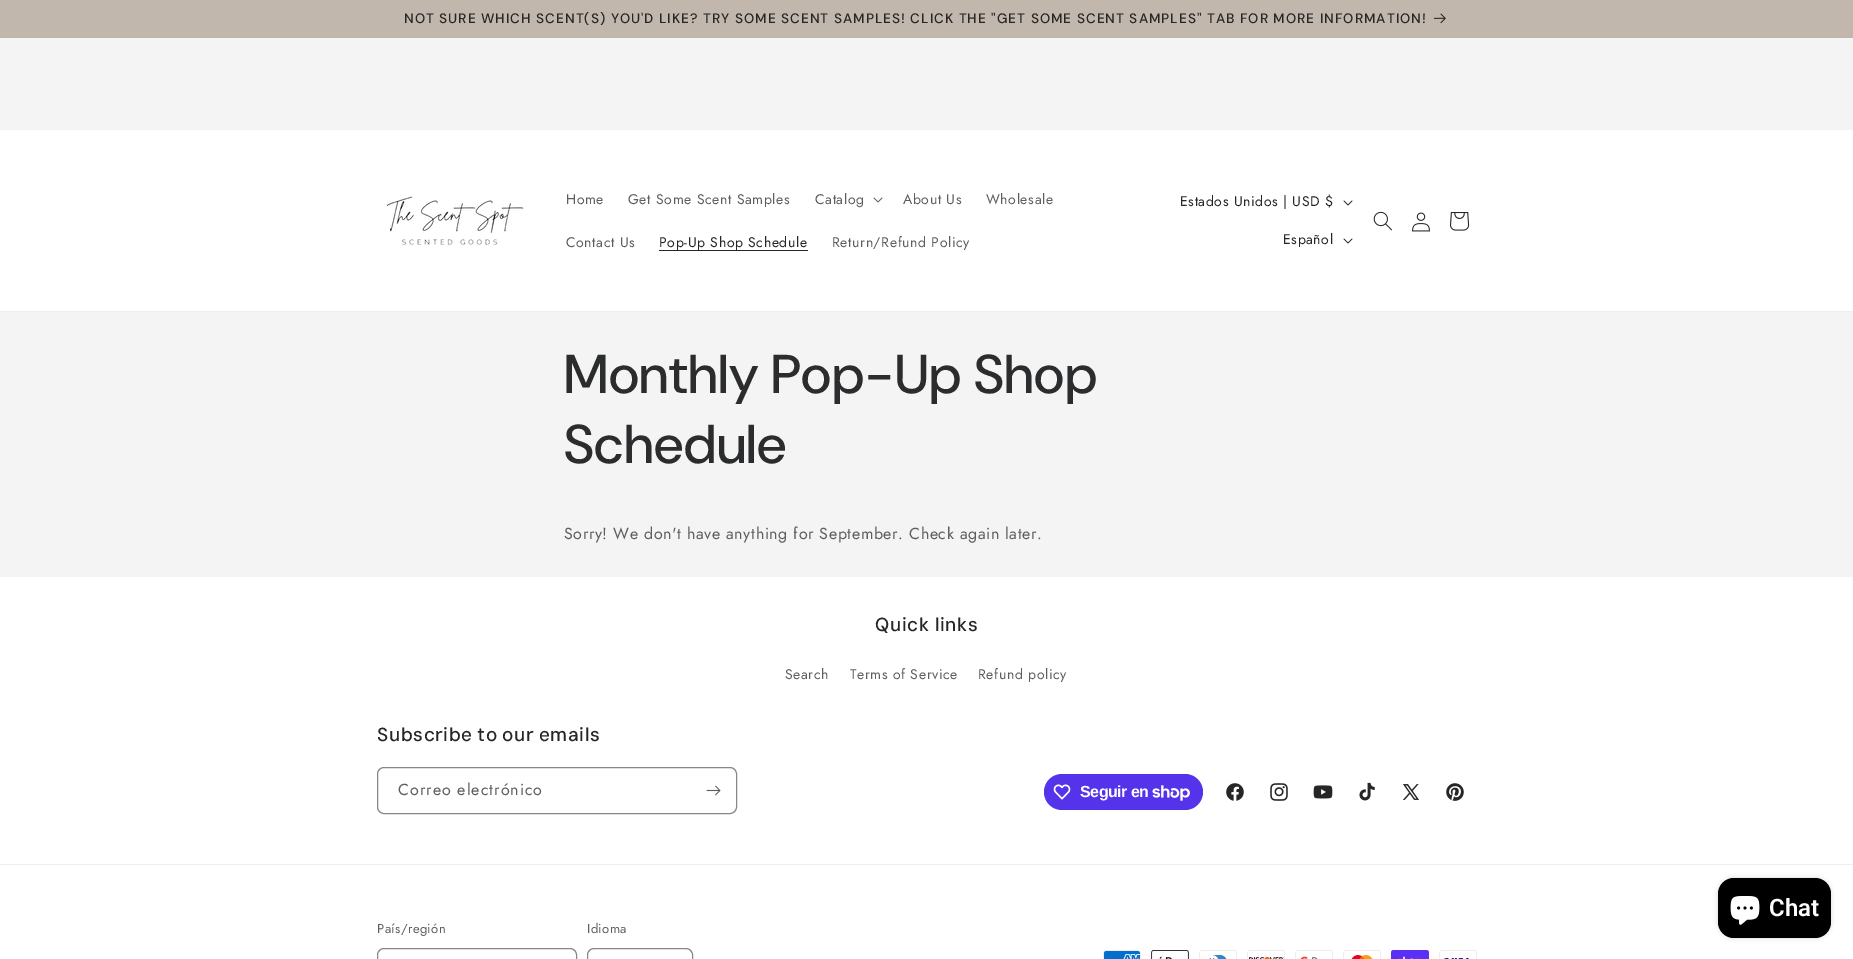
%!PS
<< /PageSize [1853 959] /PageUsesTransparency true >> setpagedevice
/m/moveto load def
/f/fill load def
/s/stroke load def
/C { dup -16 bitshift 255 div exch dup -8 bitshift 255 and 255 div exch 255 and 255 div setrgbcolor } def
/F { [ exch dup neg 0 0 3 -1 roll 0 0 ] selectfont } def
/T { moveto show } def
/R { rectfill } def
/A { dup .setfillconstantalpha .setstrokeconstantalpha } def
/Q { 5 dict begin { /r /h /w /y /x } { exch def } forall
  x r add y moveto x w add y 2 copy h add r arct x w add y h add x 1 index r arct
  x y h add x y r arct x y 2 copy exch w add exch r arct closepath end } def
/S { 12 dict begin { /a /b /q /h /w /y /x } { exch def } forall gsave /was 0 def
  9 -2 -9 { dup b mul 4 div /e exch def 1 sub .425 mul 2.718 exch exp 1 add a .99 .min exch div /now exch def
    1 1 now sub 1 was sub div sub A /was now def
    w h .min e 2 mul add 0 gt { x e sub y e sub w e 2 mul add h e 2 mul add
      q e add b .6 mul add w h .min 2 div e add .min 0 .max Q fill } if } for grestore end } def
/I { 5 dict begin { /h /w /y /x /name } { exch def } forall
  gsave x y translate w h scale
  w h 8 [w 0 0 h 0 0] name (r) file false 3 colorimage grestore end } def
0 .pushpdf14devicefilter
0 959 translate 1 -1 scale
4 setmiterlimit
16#F4F4F4 C
0 0 1853 959 R
16#C2B7AC C
0 0 1853 38 R
/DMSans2-Medium 13.65 F
16#262626 C
404 23 m -.1 0 32 1 0 (NOT SURE WHICH SCENT\(S\) YOU'D LIKE? TRY SOME SCENT SAMPLES! CLICK THE "GET SOME SCENT SAMPLES" TAB FOR MORE INFORMATION!) awidthshow
(1.rgb) 1434 13 12 11 I
16#FFFFFF C
0 130 1853 181 R
16#EEEEEE C
0 311 1853 1 R
(2.rgb) 386 196 138 49 I
/Jost-Regular 14 F
16#5D5E5F C
566 204 m .6 0 (Home) ashow
628 204 m .6 0 (Get Some Scent Samples) ashow
815 204 m .6 0 (Catalog) ashow
(3.rgb) 873 197 10 6 I
903 204 m .6 0 (About Us) ashow
986 204 m .6 0 (Wholesale) ashow
566 247 m .6 0 (Contact Us) ashow
16#262626 C
659 250 149 1 R
659 247 m .6 0 (Pop-Up Shop Schedule) ashow
16#5D5E5F C
832 247 m .6 0 (Return/Refund Policy) ashow
16#262626 C
1180 206 m .6 0 (Estados Unidos | USD $) ashow
(4.rgb) 1343 200 10 6 I
1283 244 m .6 0 (Español) ashow
(4.rgb) 1343 238 10 6 I
(5.rgb) 1373 211 19 20 I
(6.rgb) 1412 212 18 20 I
(7.rgb) 1450 212 20 19 I
/DMSans-Medium 54.5 F
16#2B2C2D C
564 393 m .6 0 (Monthly Pop-Up Shop) ashow
564 463 m .6 0 (Schedule) ashow
/Jost-Regular 16 F
16#5D5E5F C
564 539 m .6 0 (Sorry! We don't have anything for September. Check again later.) ashow
16#FFFFFF C
0 577 1853 382 R
/DMSans2-Medium 18.9 F
16#262626 C
875 631 m .6 0 (Quick links) ashow
/Jost-Regular 14 F
16#5D5E5F C
785 679 m .6 0 (Search) ashow
850 679 m .6 0 (Terms of Service) ashow
978 679 m .6 0 (Refund policy) ashow
/DMSans2-Medium 18.9 F
16#262626 C
377 741 m -1 0 32 .6 0 (Subscribe to our emails) awidthshow
16#888888 C
377.5 767.5 359 46 6.5 Q s
/Jost-Regular 16 F
16#5D5E5F C
398 795 m 1 0 (Correo electrónico) ashow
(8.rgb) 706 785 15 11 I
16#5433EB C
1044 774 159 36 18 Q f
(9.rgb) 1053 784 18 16 I
/LiberationSans-Bold 16 F
16#FFFFFF C
1080 797 m -.5 0 (Seguir en) ashow
(10.rgb) 1152 785 38 16 I
(11.rgb) 1226 783 18 18 I
(12.rgb) 1270 783 18 18 I
(13.rgb) 1313 785 20 14 I
(14.rgb) 1359 782 16 19 I
(15.rgb) 1402 784 17 16 I
(16.rgb) 1446 783 18 18 I
16#EEEEEE C
0 864 1853 1 R
/Jost-Regular 13 F
16#5D5E5F C
377 933 m .4 0 (País/región) ashow
16#888888 C
377.5 948.5 199 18 6.5 Q s
16#5D5E5F C
587 933 m .4 0 (Idioma) ashow
16#888888 C
587.5 948.5 105 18 6.5 Q s
(17.rgb) 1103 950 38 9 I
(18.rgb) 1151 950 38 9 I
(19.rgb) 1199 950 38 9 I
(20.rgb) 1247 950 38 9 I
(21.rgb) 1295 950 38 9 I
(22.rgb) 1343 950 38 9 I
(23.rgb) 1391 950 38 9 I
(24.rgb) 1439 950 38 9 I
16#000000 C
1718 878 113 60 16 2.5 .15 S
1718 878 113 60 16 Q f
(25.rgb) 1730 896 30 29 I
/Roboto-SemiBold 24 F
16#FFFFFF C
(Chat) 1769 916 T
.poppdf14devicefilter showpage
